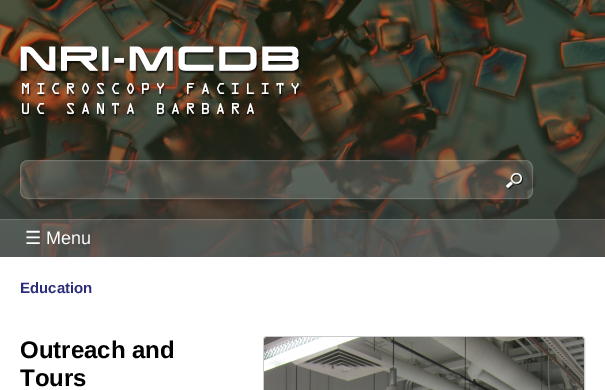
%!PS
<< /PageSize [605 390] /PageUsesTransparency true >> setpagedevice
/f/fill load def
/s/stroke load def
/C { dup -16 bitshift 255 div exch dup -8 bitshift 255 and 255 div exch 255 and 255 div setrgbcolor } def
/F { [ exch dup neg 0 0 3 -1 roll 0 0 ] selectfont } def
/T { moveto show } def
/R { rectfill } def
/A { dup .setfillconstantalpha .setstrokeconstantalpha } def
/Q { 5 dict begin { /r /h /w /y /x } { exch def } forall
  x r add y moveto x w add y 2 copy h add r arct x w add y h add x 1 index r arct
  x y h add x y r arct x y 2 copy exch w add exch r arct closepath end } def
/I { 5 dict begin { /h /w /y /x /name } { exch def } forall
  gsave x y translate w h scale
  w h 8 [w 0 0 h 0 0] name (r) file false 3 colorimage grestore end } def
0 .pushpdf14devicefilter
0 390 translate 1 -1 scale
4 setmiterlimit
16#FFFFFF C
0 0 605 390 R
(1.rgb) 0 0 605 257 I
(2.rgb) 20 46 281 71 I
0.15 A
20 160 513 39 8 Q f
1 A
(3.rgb) 506 173 17 16 I
0.15 A
20.5 160.5 512 38 7.5 Q s
0 219 605 38 R
0 219 605 1 R
/DejaVuSans-Regular 18 F
1 A
(☰) 25 244 T
/LiberationSans-Regular 18 F
(Menu) 46 244 T
/LiberationSans-Bold 15 F
16#2C2D7A C
(Education) 20 293 T
/LiberationSans-Bold 24 F
16#000000 C
(Outreach and) 20 358 T
(Tours) 20 386 T
16#CCCCCC C
263.5 336.5 321 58 3.5 Q s
(4.rgb) 264 337 320 53 I
.poppdf14devicefilter showpage
